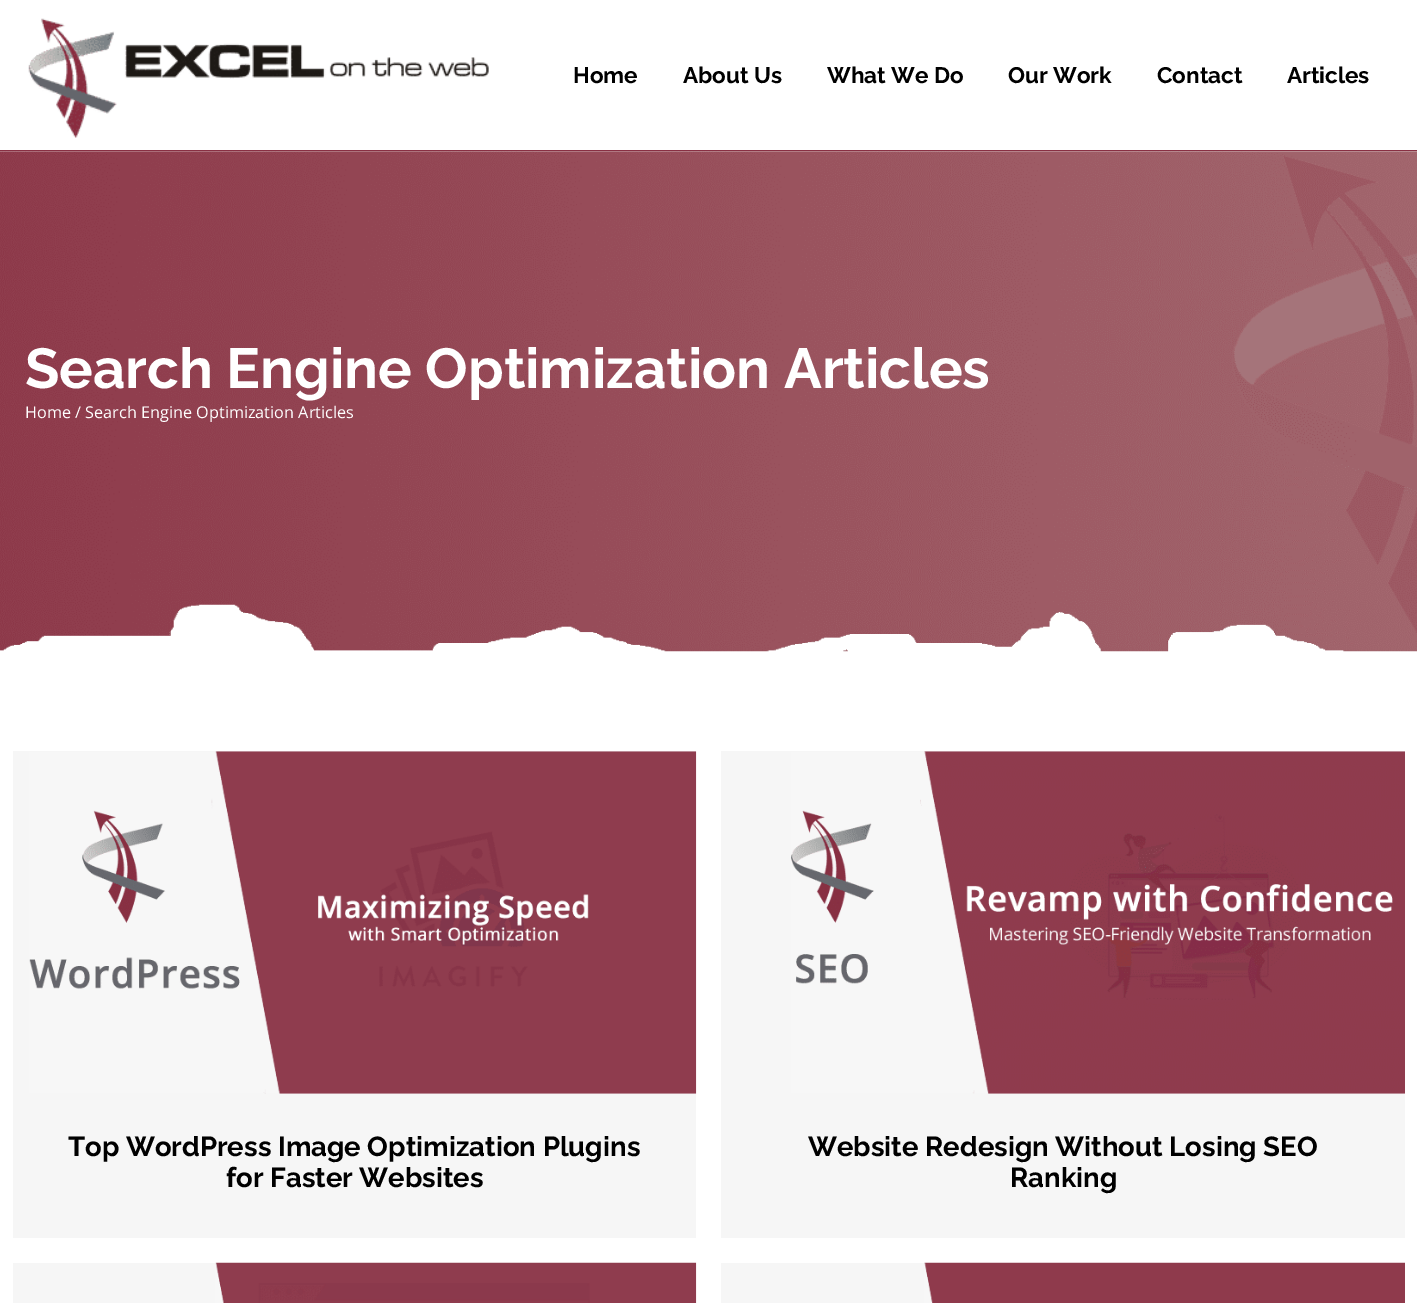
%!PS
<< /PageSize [1417 1303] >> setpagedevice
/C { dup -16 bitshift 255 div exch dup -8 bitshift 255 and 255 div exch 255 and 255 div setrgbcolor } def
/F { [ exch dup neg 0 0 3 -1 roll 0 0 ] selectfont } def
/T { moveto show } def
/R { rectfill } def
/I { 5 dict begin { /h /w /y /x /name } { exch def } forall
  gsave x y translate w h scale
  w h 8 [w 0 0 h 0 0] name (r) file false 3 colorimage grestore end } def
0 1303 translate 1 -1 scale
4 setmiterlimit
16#FFFFFF C
0 0 1417 1303 R
16#883043 C
0 150 1417 1 R
(1.rgb) 28 18 461 120 I
/Raleway-Bold 22.5 F
16#000000 C
(Home) 573 83 T
(About Us) 683 83 T
(What We Do) 827 83 T
(Our Work) 1008 83 T
(Contact) 1157 83 T
(Articles) 1287 83 T
(2.rgb) 0 151 1417 501 I
/Raleway-Bold 56.25 F
16#FFFFFF C
(Search Engine Optimization Articles) 25 388 T
/OpenSans-Regular 16.25 F
(Home / Search Engine Optimization Articles) 25 418 T
16#F6F6F6 C
13 751 683 487 R
(3.rgb) 29 751 668 343 I
/Raleway-Bold 27.5 F
16#000000 C
(Top WordPress Image Optimization Plugins) 68 1156 T
(for Faster Websites) 226 1187 T
16#F6F6F6 C
721 751 684 487 R
(4.rgb) 791 751 614 343 I
16#000000 C
(Website Redesign Without Losing SEO) 808 1156 T
(Ranking) 1010 1187 T
16#F6F6F6 C
13 1263 202 40 R
(5.rgb) 215 1262 482 41 I
721 1263 203 40 R
(6.rgb) 924 1262 481 41 I
showpage
